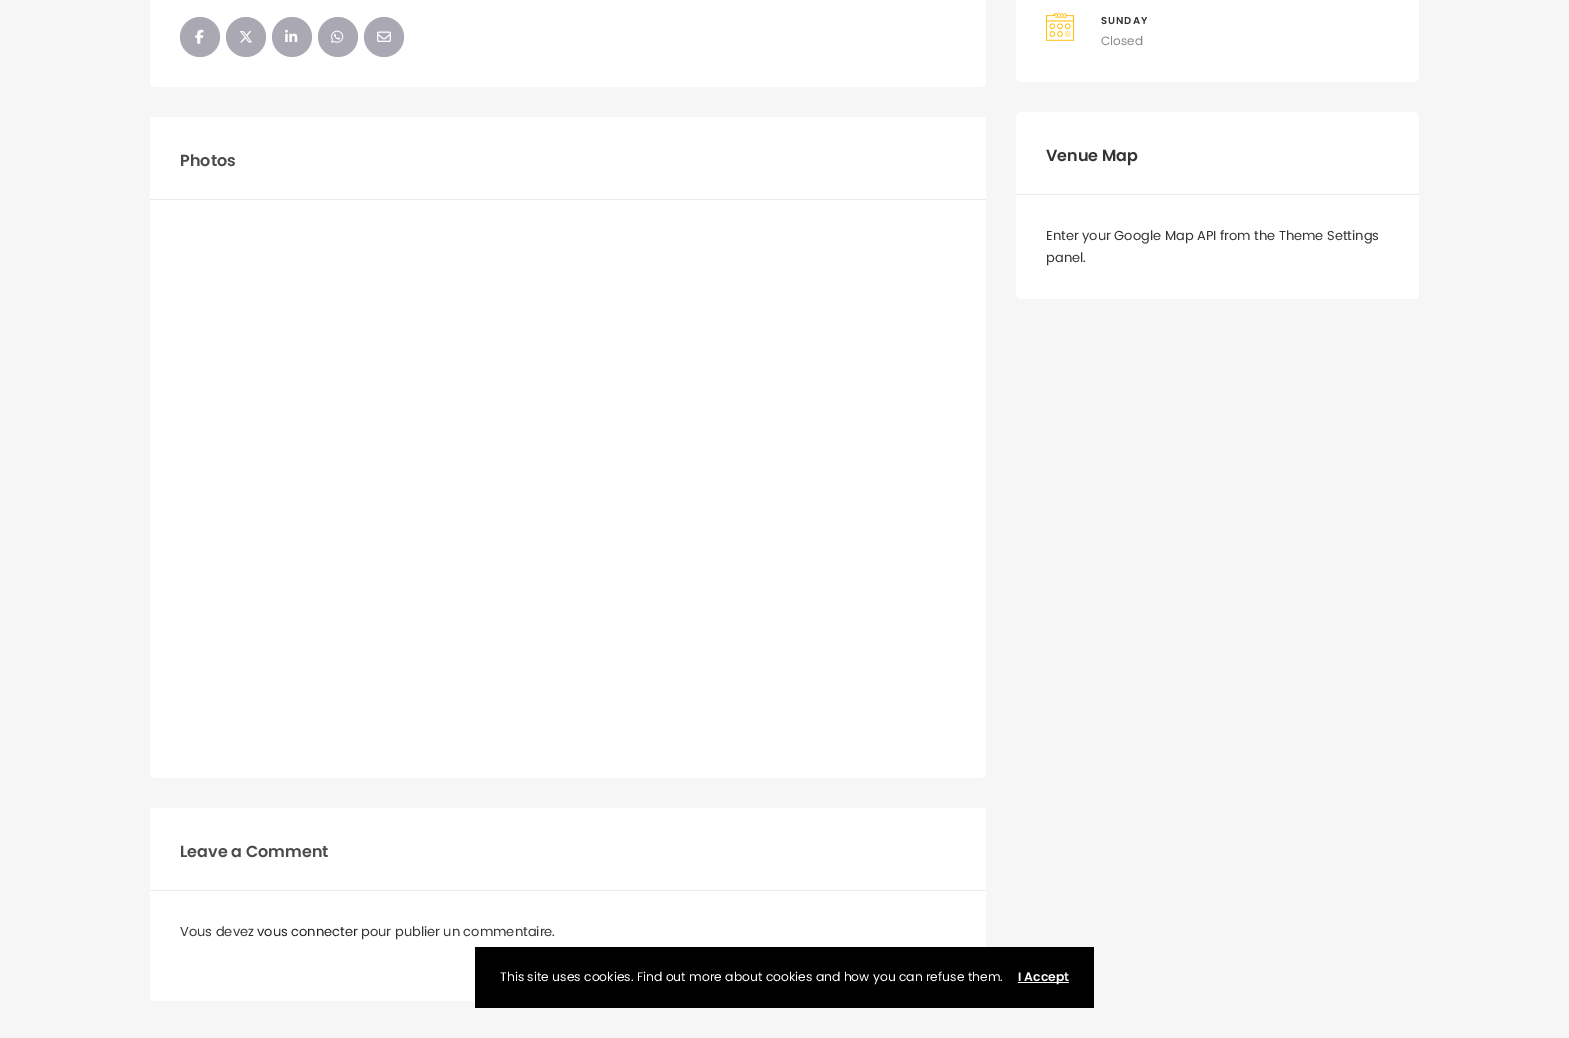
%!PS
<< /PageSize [1569 1038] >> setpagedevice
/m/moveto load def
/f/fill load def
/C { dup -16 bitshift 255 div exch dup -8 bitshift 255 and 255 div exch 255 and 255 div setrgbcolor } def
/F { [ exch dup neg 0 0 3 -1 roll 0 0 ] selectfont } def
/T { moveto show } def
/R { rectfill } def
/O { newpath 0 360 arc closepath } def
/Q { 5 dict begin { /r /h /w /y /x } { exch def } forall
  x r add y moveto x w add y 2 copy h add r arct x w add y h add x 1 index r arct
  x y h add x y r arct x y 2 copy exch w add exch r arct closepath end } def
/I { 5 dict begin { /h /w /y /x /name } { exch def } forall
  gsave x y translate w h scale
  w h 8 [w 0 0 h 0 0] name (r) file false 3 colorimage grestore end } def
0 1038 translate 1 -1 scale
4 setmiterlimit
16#F6F6F6 C
0 0 1569 1038 R
16#FFFFFF C
150 -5 836 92 5 Q f
16#A9A8B3 C
200 37 20 O f
(1.rgb) 195 29 9 15 I
246 37 20 O f
(2.rgb) 240 31 13 12 I
292 37 20 O f
(3.rgb) 285 29 13 13 I
338 37 20 O f
(4.rgb) 331 30 13 13 I
384 37 20 O f
(5.rgb) 377 31 14 11 I
16#FFFFFF C
150 117 836 661 5 Q f
150 117 836 3 R
16#EAEAEA C
150 199 836 1 R
/Poppins-SemiBold 16 F
16#4A4A4A C
(Photos) 180 166 T
16#FFFFFF C
150 808 836 193 5 Q f
150 808 836 3 R
16#EAEAEA C
150 890 836 1 R
16#4A4A4A C
(Leave a Comment) 180 857 T
/Poppins-Regular 13 F
16#333333 C
(Vous devez) 180 936 T
16#222222 C
(vous connecter) 257 936 T
16#333333 C
(pour publier un commentaire.) 361 936 T
16#FFFFFF C
1016 -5 403 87 5 Q f
(6.rgb) 1046 13 28 28 I
/Poppins-SemiBold 10 F
16#333333 C
1101 24 m 1 0 (SUNDAY) ashow
/Poppins-Regular 12 F
16#888888 C
(Closed) 1101 45 T
16#FFFFFF C
1016 112 403 187 5 Q f
16#EAEAEA C
1016 194 403 1 R
/Poppins-SemiBold 16 F
16#333333 C
(Venue Map) 1046 161 T
/Poppins-Regular 13 F
(Enter your Google Map API from the Theme Settings) 1046 240 T
(panel.) 1046 262 T
16#000000 C
475 947 619 61 R
/Poppins-Regular 12.35 F
16#FFFFFF C
(This site uses cookies. Find out more about cookies and how you can refuse them.) 500 981 T
1018 982 51 1 R
/Poppins-SemiBold 12.35 F
(I Accept) 1018 981 T
showpage
